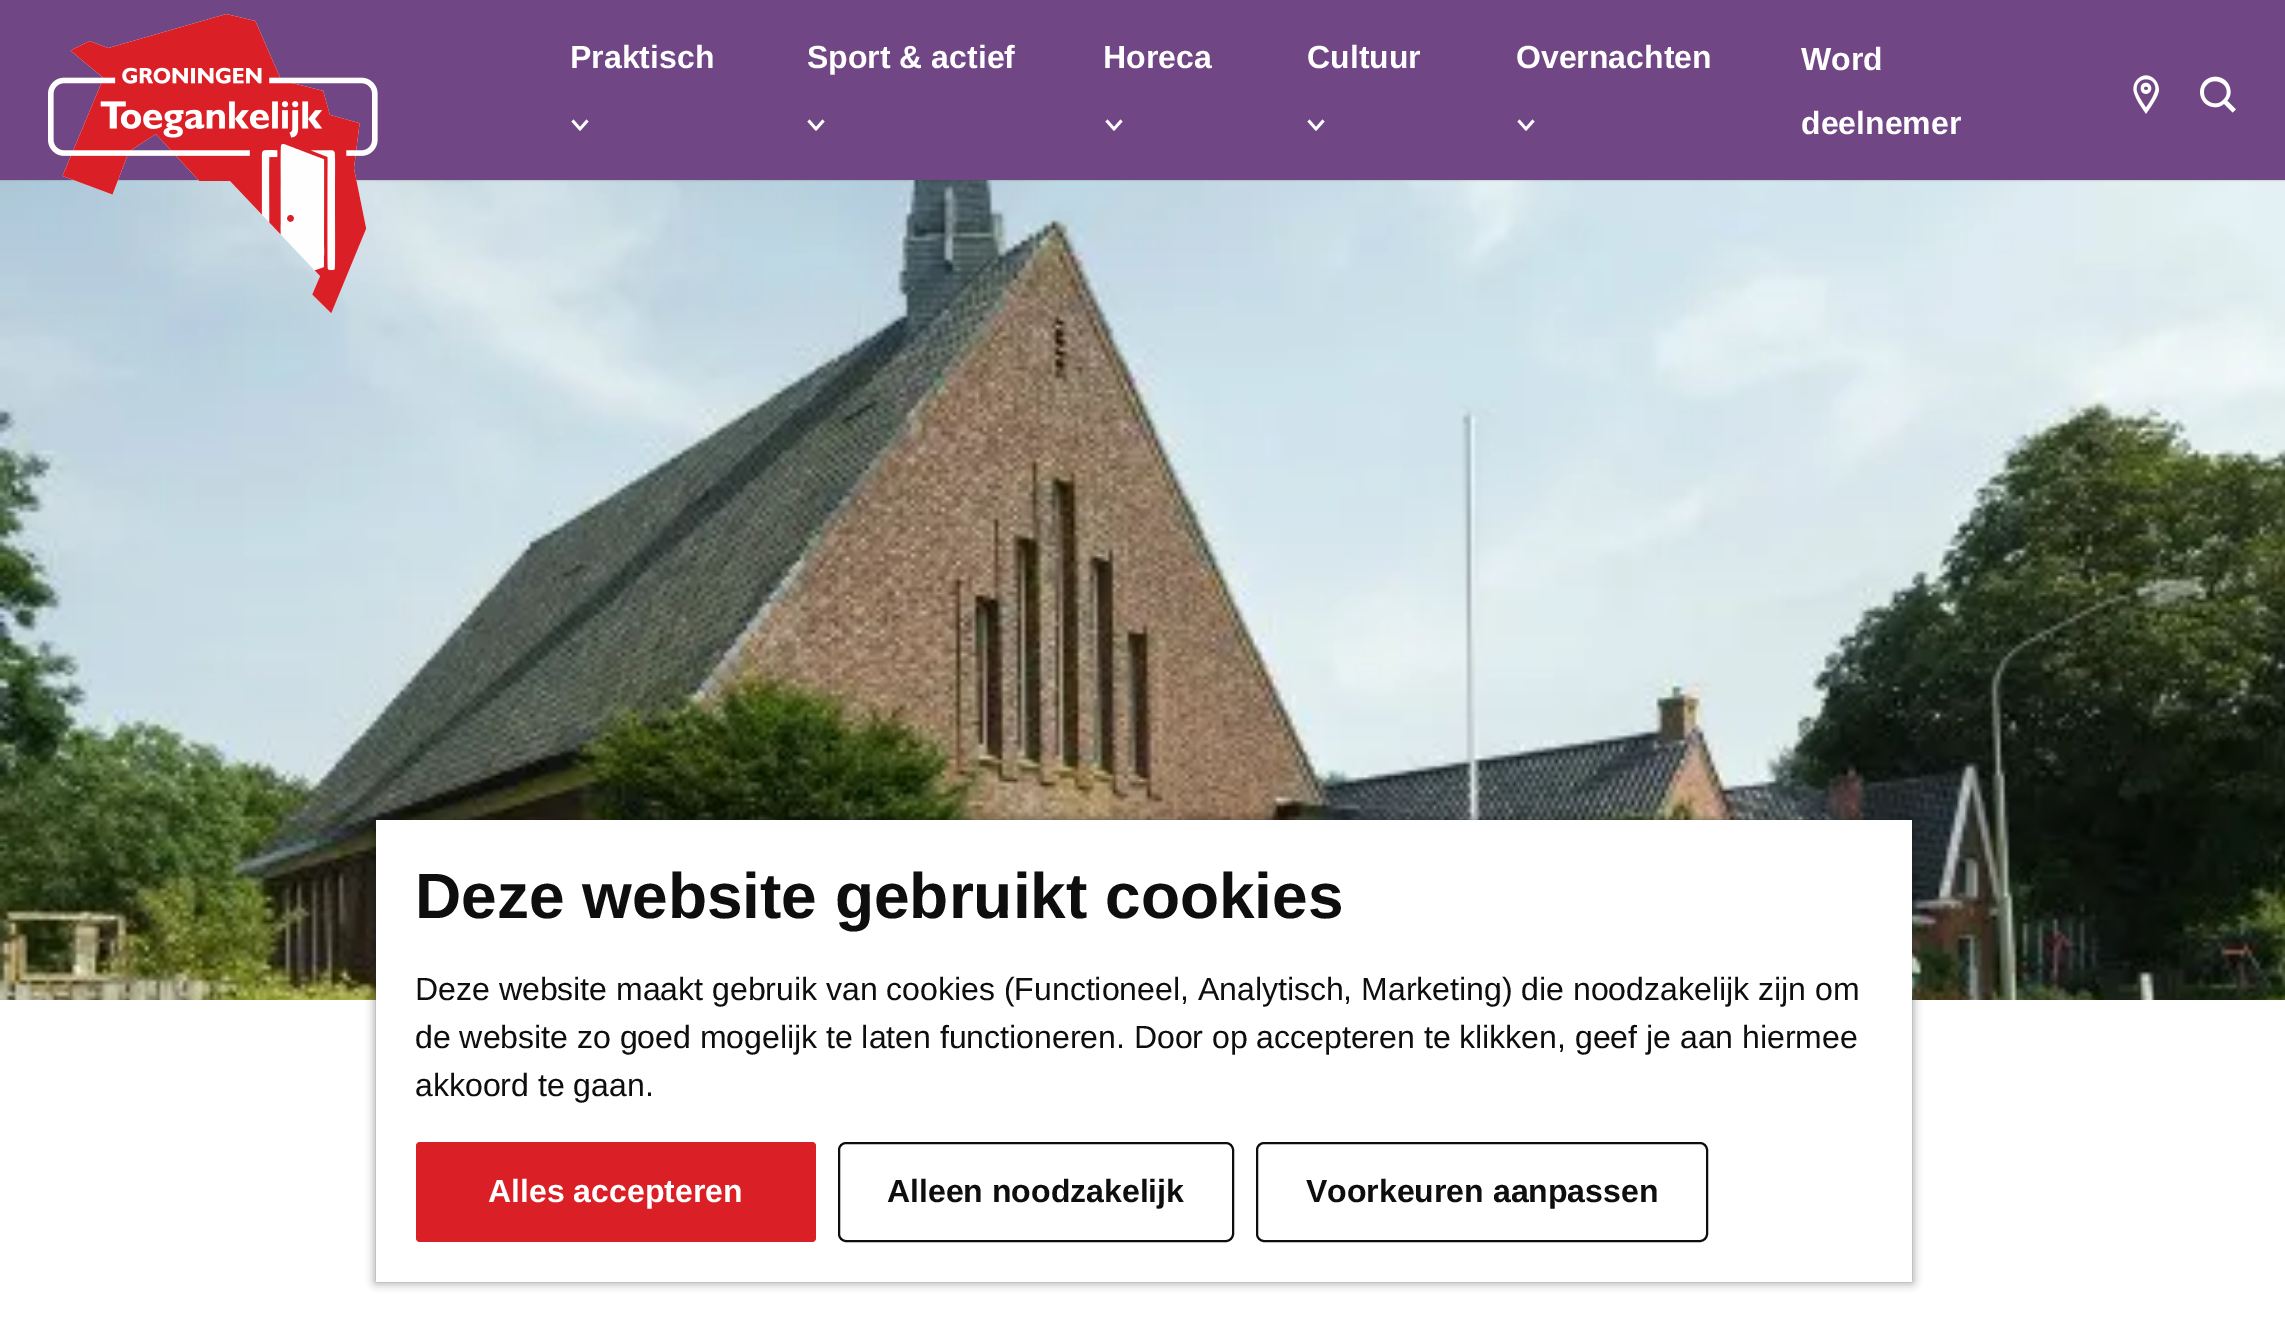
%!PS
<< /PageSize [2285 1329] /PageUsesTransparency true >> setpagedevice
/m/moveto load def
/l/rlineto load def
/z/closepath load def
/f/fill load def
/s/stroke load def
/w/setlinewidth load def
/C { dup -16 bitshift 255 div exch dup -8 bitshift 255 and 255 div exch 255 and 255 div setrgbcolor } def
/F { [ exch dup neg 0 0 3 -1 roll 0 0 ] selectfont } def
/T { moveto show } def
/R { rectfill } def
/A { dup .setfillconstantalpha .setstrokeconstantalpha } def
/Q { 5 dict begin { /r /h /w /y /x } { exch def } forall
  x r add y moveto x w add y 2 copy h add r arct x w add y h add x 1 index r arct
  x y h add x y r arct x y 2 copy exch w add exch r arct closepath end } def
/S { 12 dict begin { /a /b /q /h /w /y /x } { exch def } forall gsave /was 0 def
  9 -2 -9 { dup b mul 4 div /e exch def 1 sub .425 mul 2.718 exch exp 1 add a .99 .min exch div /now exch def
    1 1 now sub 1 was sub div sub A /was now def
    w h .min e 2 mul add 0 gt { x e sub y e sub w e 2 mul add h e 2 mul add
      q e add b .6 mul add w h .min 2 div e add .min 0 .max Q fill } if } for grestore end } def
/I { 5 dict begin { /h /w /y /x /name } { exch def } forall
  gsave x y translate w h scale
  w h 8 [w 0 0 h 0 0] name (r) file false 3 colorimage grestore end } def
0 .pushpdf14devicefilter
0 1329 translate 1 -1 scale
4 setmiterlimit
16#FFFFFF C
0 0 2285 1329 R
(4.rgb) 0 180 2285 820 I
16#0E0E0E C
0 0 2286 180 0 1 .3 S
16#714684 C
0 0 2285 180 R
(1.rgb) 48 14 330 300 I
/LiberationSans-Bold 32 F
16#FFFFFF C
(Praktisch) 570 68 T
586.5 119.5 m -6.5 7.5 l -6.5 -7.5 l -2 2 l 8.5 9.5 l 8.5 -9.5 l z f
(Sport & actief) 807 68 T
822.5 119.5 m -6.5 7.5 l -6.5 -7.5 l -2 2 l 8.5 9.5 l 8.5 -9.5 l z f
(Horeca) 1103 68 T
1120.5 119.5 m -6.5 7.5 l -6.5 -7.5 l -2 2 l 8.5 9.5 l 8.5 -9.5 l z f
(Cultuur) 1307 68 T
1322.5 119.5 m -6.5 7.5 l -6.5 -7.5 l -2 2 l 8.5 9.5 l 8.5 -9.5 l z f
(Overnachten) 1516 68 T
1532.5 119.5 m -6.5 7.5 l -6.5 -7.5 l -2 2 l 8.5 9.5 l 8.5 -9.5 l z f
(Word) 1801 70 T
(deelnemer) 1801 134 T
(2.rgb) 2133 75 26 39 I
(3.rgb) 2200 76 36 37 I
16#0E0E0E C
376 820 1536 462 0 5 .5 S
16#FFFFFF C
376 820 1536 462 R
/LiberationSans-Bold 64 F
16#0E0E0E C
(Deze website gebruikt cookies) 415 918 T
/LiberationSans-Regular 32 F
(Deze website maakt gebruik van cookies \(Functioneel, Analytisch, Marketing\) die noodzakelijk zijn om) 415 1000 T
(de website zo goed mogelijk te laten functioneren. Door op accepteren te klikken, geef je aan hiermee) 415 1048 T
(akkoord te gaan.) 415 1096 T
16#DB1F26 C
416 1142 400 100 4 Q f
/LiberationSans-Bold 32 F
16#FFFFFF C
(Alles accepteren) 488 1202 T
16#0E0E0E C
2 w
839 1143 394 98 7 Q s
(Alleen noodzakelijk) 887 1202 T
1257 1143 450 98 7 Q s
(Voorkeuren aanpassen) 1306 1202 T
.poppdf14devicefilter showpage
